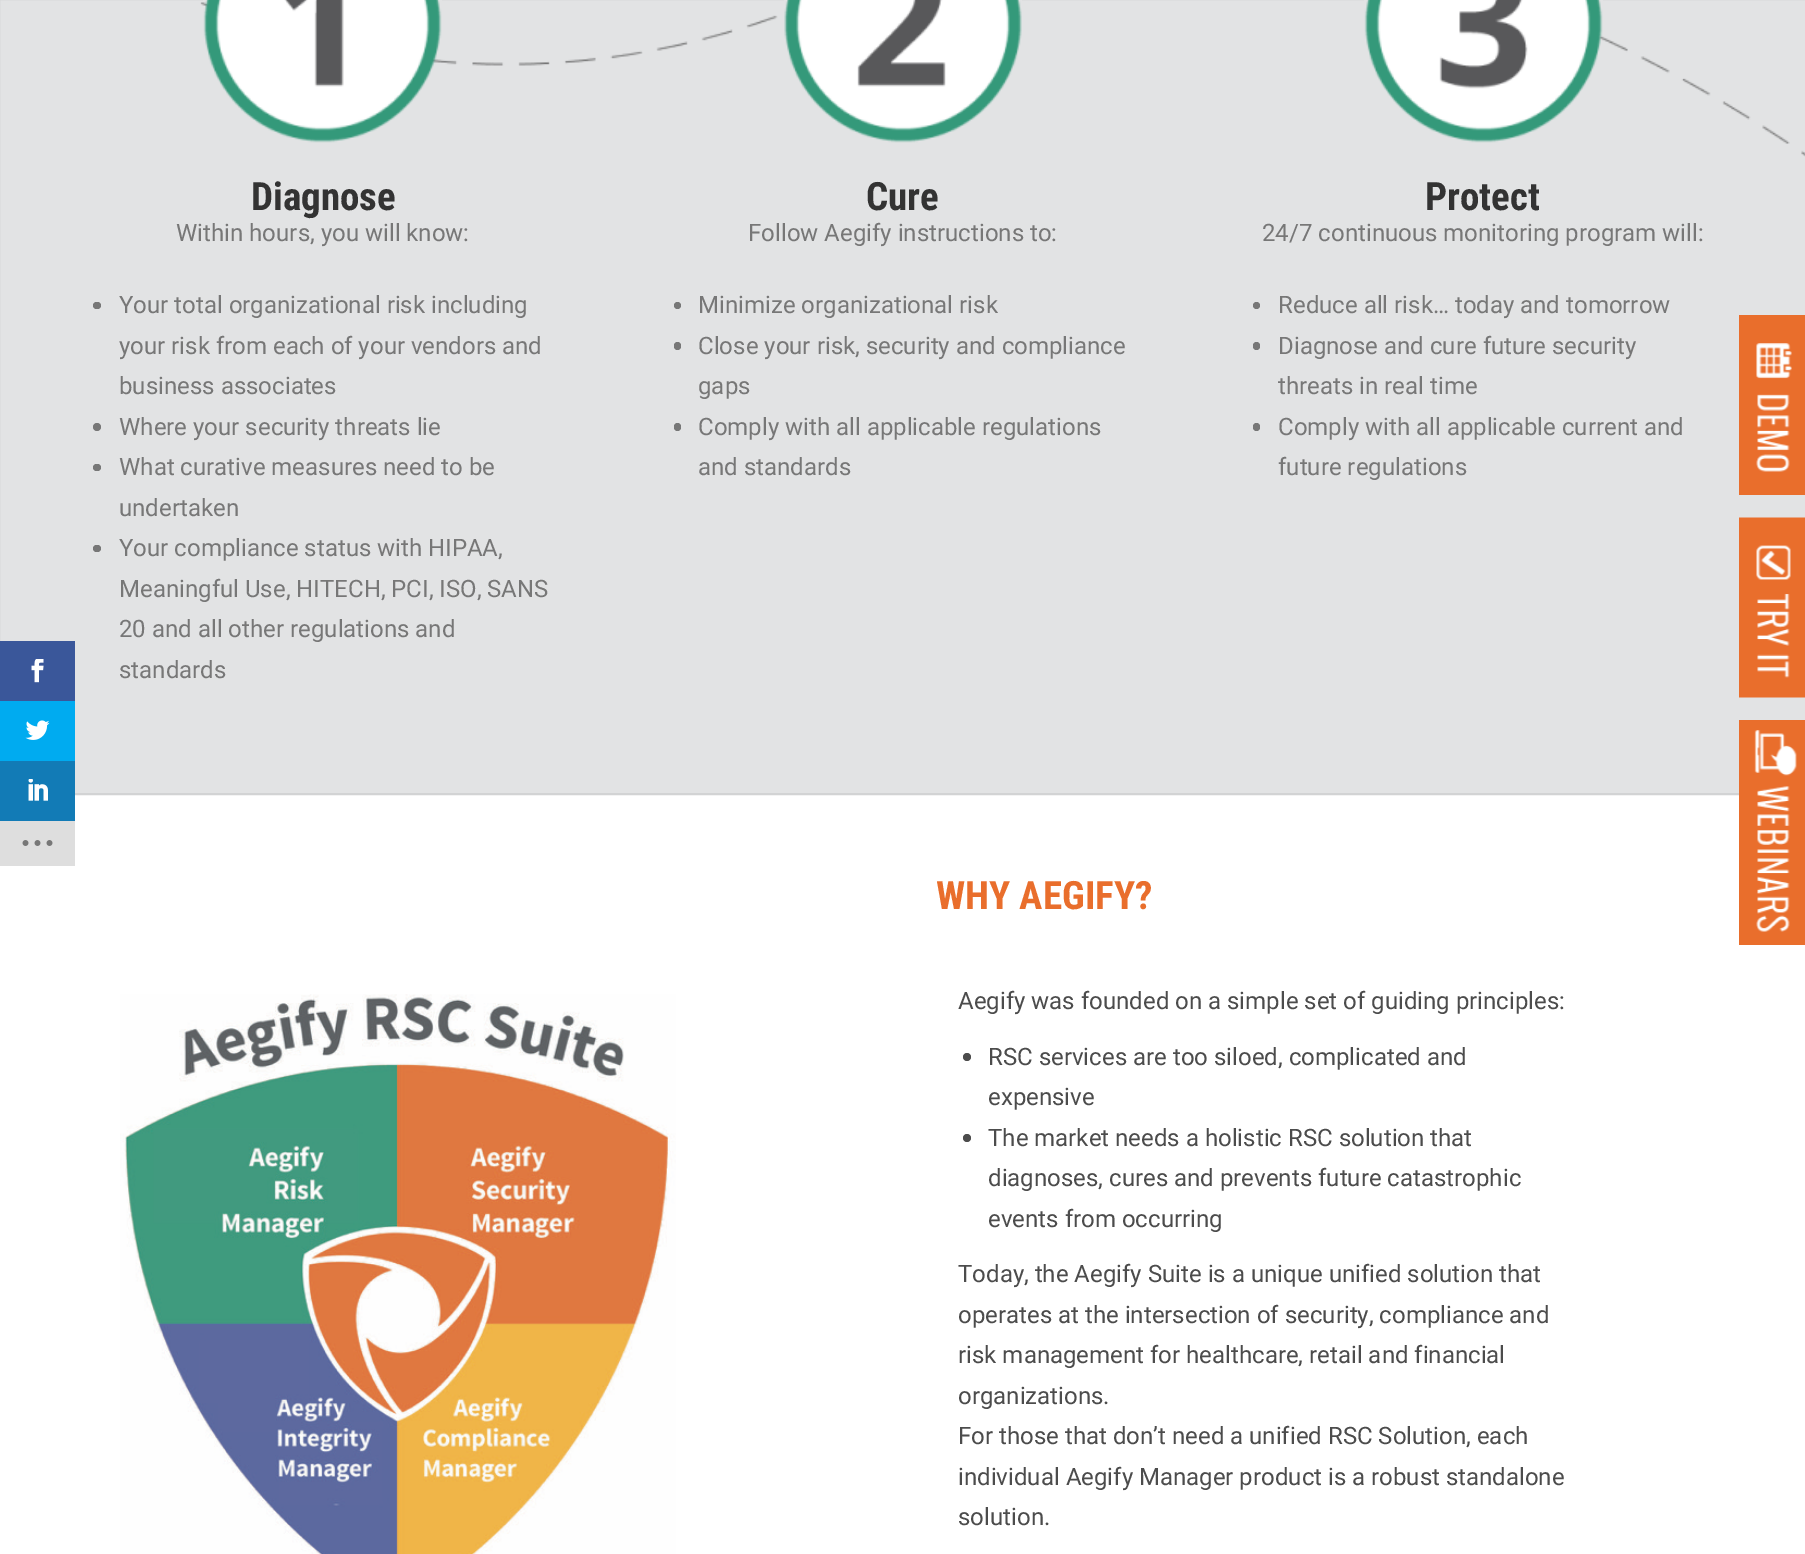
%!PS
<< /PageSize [1805 1554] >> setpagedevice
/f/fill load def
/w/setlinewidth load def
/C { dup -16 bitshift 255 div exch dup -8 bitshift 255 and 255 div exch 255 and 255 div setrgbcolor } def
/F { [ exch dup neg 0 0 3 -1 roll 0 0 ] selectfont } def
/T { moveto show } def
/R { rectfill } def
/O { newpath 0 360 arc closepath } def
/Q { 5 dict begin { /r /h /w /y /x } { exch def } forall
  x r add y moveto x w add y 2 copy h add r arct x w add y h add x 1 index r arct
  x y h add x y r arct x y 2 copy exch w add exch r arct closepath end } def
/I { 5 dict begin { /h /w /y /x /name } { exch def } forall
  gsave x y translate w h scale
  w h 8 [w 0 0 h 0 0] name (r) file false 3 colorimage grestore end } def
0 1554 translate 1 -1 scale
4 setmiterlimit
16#FFFFFF C
0 0 1805 1554 R
16#E2E3E4 C
0 0 1805 793 R
(5.rgb) 200 2 1605 155 I
16#D2D3D4 C
2 w
-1 -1 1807 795 rectstroke
16#3A579A C
0 641 75 60 R
(1.rgb) 31 659 13 24 I
16#00ABF0 C
0 701 75 60 R
(2.rgb) 25 720 25 20 I
16#127BB6 C
0 761 75 60 R
(3.rgb) 28 779 20 22 I
16#DEDEDE C
0 821 75 45 R
(4.rgb) 22 840 31 6 I
(6.rgb) 203 0 239 143 I
/RobotoCondensed-Bold 39 F
16#333333 C
(Diagnose) 251 210 T
/Roboto-Regular 24 F
16#777777 C
(Within hours, you will know:) 176 241 T
93 302 8 7 3.5 Q f
(Your total organizational risk including) 119 313 T
(your risk from each of your vendors and) 119 354 T
(business associates) 119 394 T
97 427 4 O f
(Where your security threats lie) 119 435 T
93 464 8 7 3.5 Q f
(What curative measures need to be) 119 475 T
(undertaken) 119 516 T
93 545 8 7 3.5 Q f
(Your compliance status with HIPAA,) 119 556 T
(Meaningful Use, HITECH, PCI, ISO, SANS) 119 597 T
(20 and all other regulations and) 119 637 T
(standards) 119 678 T
(7.rgb) 784 0 238 143 I
/RobotoCondensed-Bold 39 F
16#333333 C
(Cure) 866 210 T
/Roboto-Regular 24 F
16#777777 C
(Follow Aegify instructions to:) 748 241 T
677.5 305.5 3.5 O f
(Minimize organizational risk) 698 313 T
674 342 7 8 3.5 Q f
(Close your risk, security and compliance) 698 354 T
(gaps) 698 394 T
674 423 7 8 3.5 Q f
(Comply with all applicable regulations) 698 435 T
(and standards) 698 475 T
(8.rgb) 1364 0 239 143 I
/RobotoCondensed-Bold 39 F
16#333333 C
(Protect) 1425 210 T
/Roboto-Regular 24 F
16#777777 C
(24/7 continuous monitoring program will:) 1262 241 T
1256.5 305.5 3.5 O f
(Reduce all risk… today and tomorrow) 1278 313 T
1253 342 7 8 3.5 Q f
(Diagnose and cure future security) 1278 354 T
(threats in real time) 1278 394 T
1253 423 7 8 3.5 Q f
(Comply with all applicable current and) 1278 435 T
(future regulations) 1278 475 T
(9.rgb) 120 994 556 560 I
/RobotoCondensed-Bold 39 F
16#E96E2C C
(WHY AEGIFY?) 936 909 T
/Roboto-Regular 24 F
16#4C4C4C C
(Aegify was founded on a simple set of guiding principles:) 958 1009 T
967 1057 4 O f
(RSC services are too siloed, complicated and) 988 1065 T
(expensive) 988 1105 T
967 1138 4 O f
(The market needs a holistic RSC solution that) 988 1146 T
(diagnoses, cures and prevents future catastrophic) 988 1186 T
(events from occurring) 988 1227 T
(Today, the Aegify Suite is a unique unified solution that) 958 1282 T
(operates at the intersection of security, compliance and) 958 1323 T
(risk management for healthcare, retail and financial) 958 1363 T
(organizations.) 958 1404 T
(For those that don’t need a unified RSC Solution, each) 958 1444 T
(individual Aegify Manager product is a robust standalone) 958 1485 T
(solution.) 958 1525 T
(10.rgb) 1739 315 66 180 I
(11.rgb) 1739 517 66 181 I
(12.rgb) 1739 720 66 225 I
showpage
